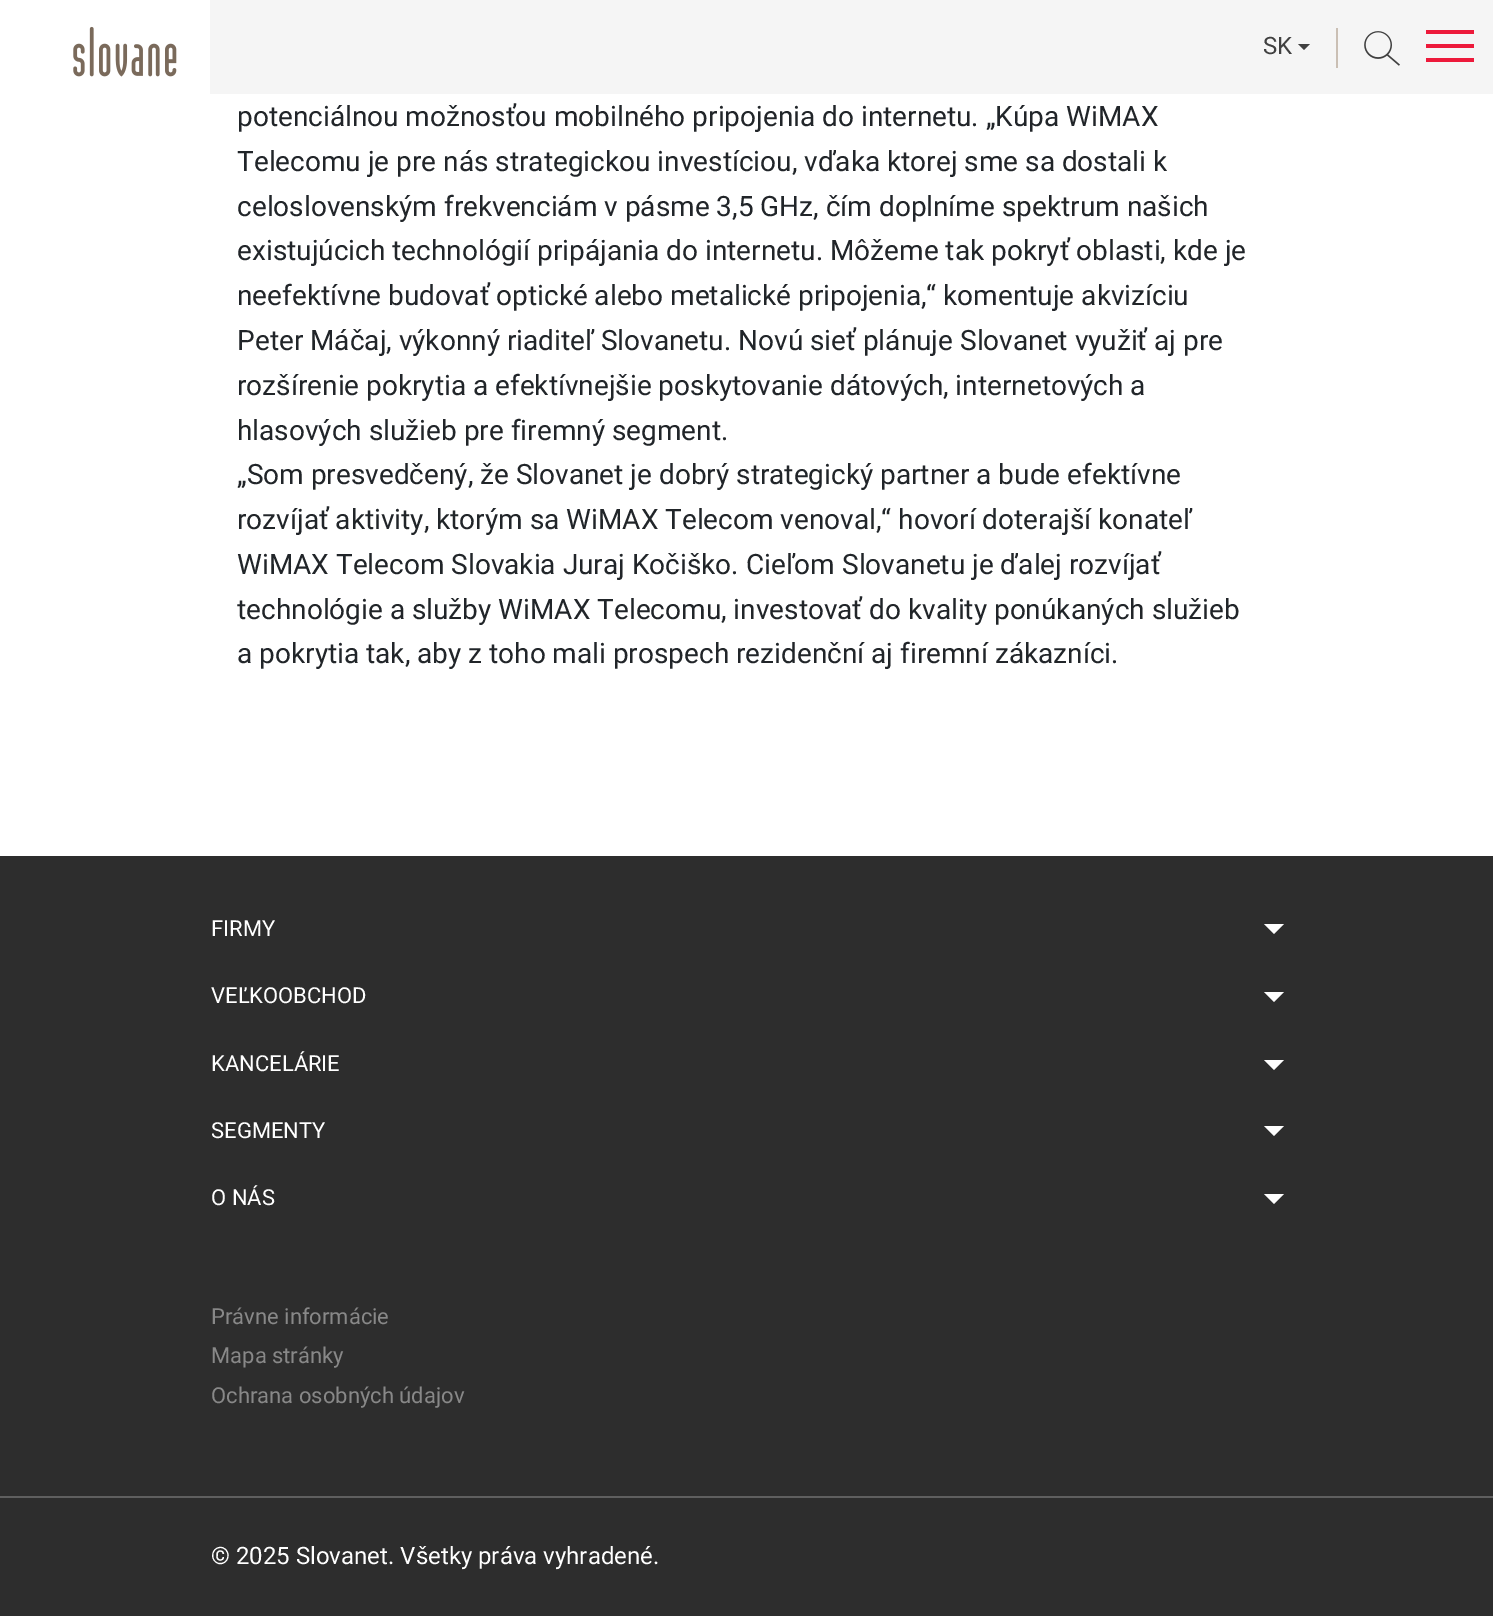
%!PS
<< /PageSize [1493 1616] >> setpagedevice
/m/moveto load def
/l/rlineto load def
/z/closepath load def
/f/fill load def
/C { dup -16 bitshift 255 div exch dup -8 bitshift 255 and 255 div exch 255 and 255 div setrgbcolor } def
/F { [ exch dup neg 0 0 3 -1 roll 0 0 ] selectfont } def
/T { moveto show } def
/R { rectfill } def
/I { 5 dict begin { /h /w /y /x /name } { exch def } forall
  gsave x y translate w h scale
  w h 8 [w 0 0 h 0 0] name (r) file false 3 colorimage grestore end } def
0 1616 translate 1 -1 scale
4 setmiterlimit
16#FFFFFF C
0 0 1493 1616 R
(1.rgb) 73 26 104 51 I
16#F5F5F5 C
210 0 1283 94 R
/Roboto-Regular 24 F
16#404040 C
(SK) 1263 54 T
1298 44 m 12 0 l -6 6 l z f
16#CABFB4 C
1336 28 2 40 R
(2.rgb) 1364 31 36 35 I
16#ED1A3B C
1426 30 48 4 R
1426 44 48 4 R
1426 58 48 4 R
/Roboto-Regular 28 F
16#212529 C
(potenciálnou možnosťou mobilného pripojenia do internetu. „Kúpa WiMAX) 237 126 T
(Telecomu je pre nás strategickou investíciou, vďaka ktorej sme sa dostali k) 237 171 T
(celoslovenským frekvenciám v pásme 3,5 GHz, čím doplníme spektrum našich) 237 216 T
(existujúcich technológií pripájania do internetu. Môžeme tak pokryť oblasti, kde je) 237 260 T
(neefektívne budovať optické alebo metalické pripojenia,“ komentuje akvizíciu) 237 305 T
(Peter Máčaj, výkonný riaditeľ Slovanetu. Novú sieť plánuje Slovanet využiť aj pre) 237 350 T
(rozšírenie pokrytia a efektívnejšie poskytovanie dátových, internetových a) 237 395 T
(hlasových služieb pre firemný segment.) 237 440 T
(„Som presvedčený, že Slovanet je dobrý strategický partner a bude efektívne) 237 484 T
(rozvíjať aktivity, ktorým sa WiMAX Telecom venoval,“ hovorí doterajší konateľ) 237 529 T
(WiMAX Telecom Slovakia Juraj Kočiško. Cieľom Slovanetu je ďalej rozvíjať) 237 574 T
(technológie a služby WiMAX Telecomu, investovať do kvality ponúkaných služieb) 237 619 T
(a pokrytia tak, aby z toho mali prospech rezidenční aj firemní zákazníci.) 237 663 T
16#2D2D2D C
0 856 1493 760 R
/Roboto-Regular 22 F
16#FFFFFF C
(FIRMY) 211 936 T
1264 924 m 20 0 l -10 10 l z f
(VEĽKOOBCHOD) 211 1003 T
1264 992 m 20 0 l -10 10 l z f
(KANCELÁRIE) 211 1071 T
1264 1060 m 20 0 l -10 10 l z f
(SEGMENTY) 211 1138 T
1264 1126 m 20 0 l -10 10 l z f
(O NÁS) 211 1205 T
1264 1194 m 20 0 l -10 10 l z f
16#888888 C
(Právne informácie) 211 1324 T
(Mapa stránky) 211 1363 T
(Ochrana osobných údajov) 211 1403 T
16#5F5F5F C
0 1496 1493 2 R
/Roboto-Regular 24 F
16#FFFFFF C
(© 2025 Slovanet. Všetky práva vyhradené.) 211 1564 T
showpage
